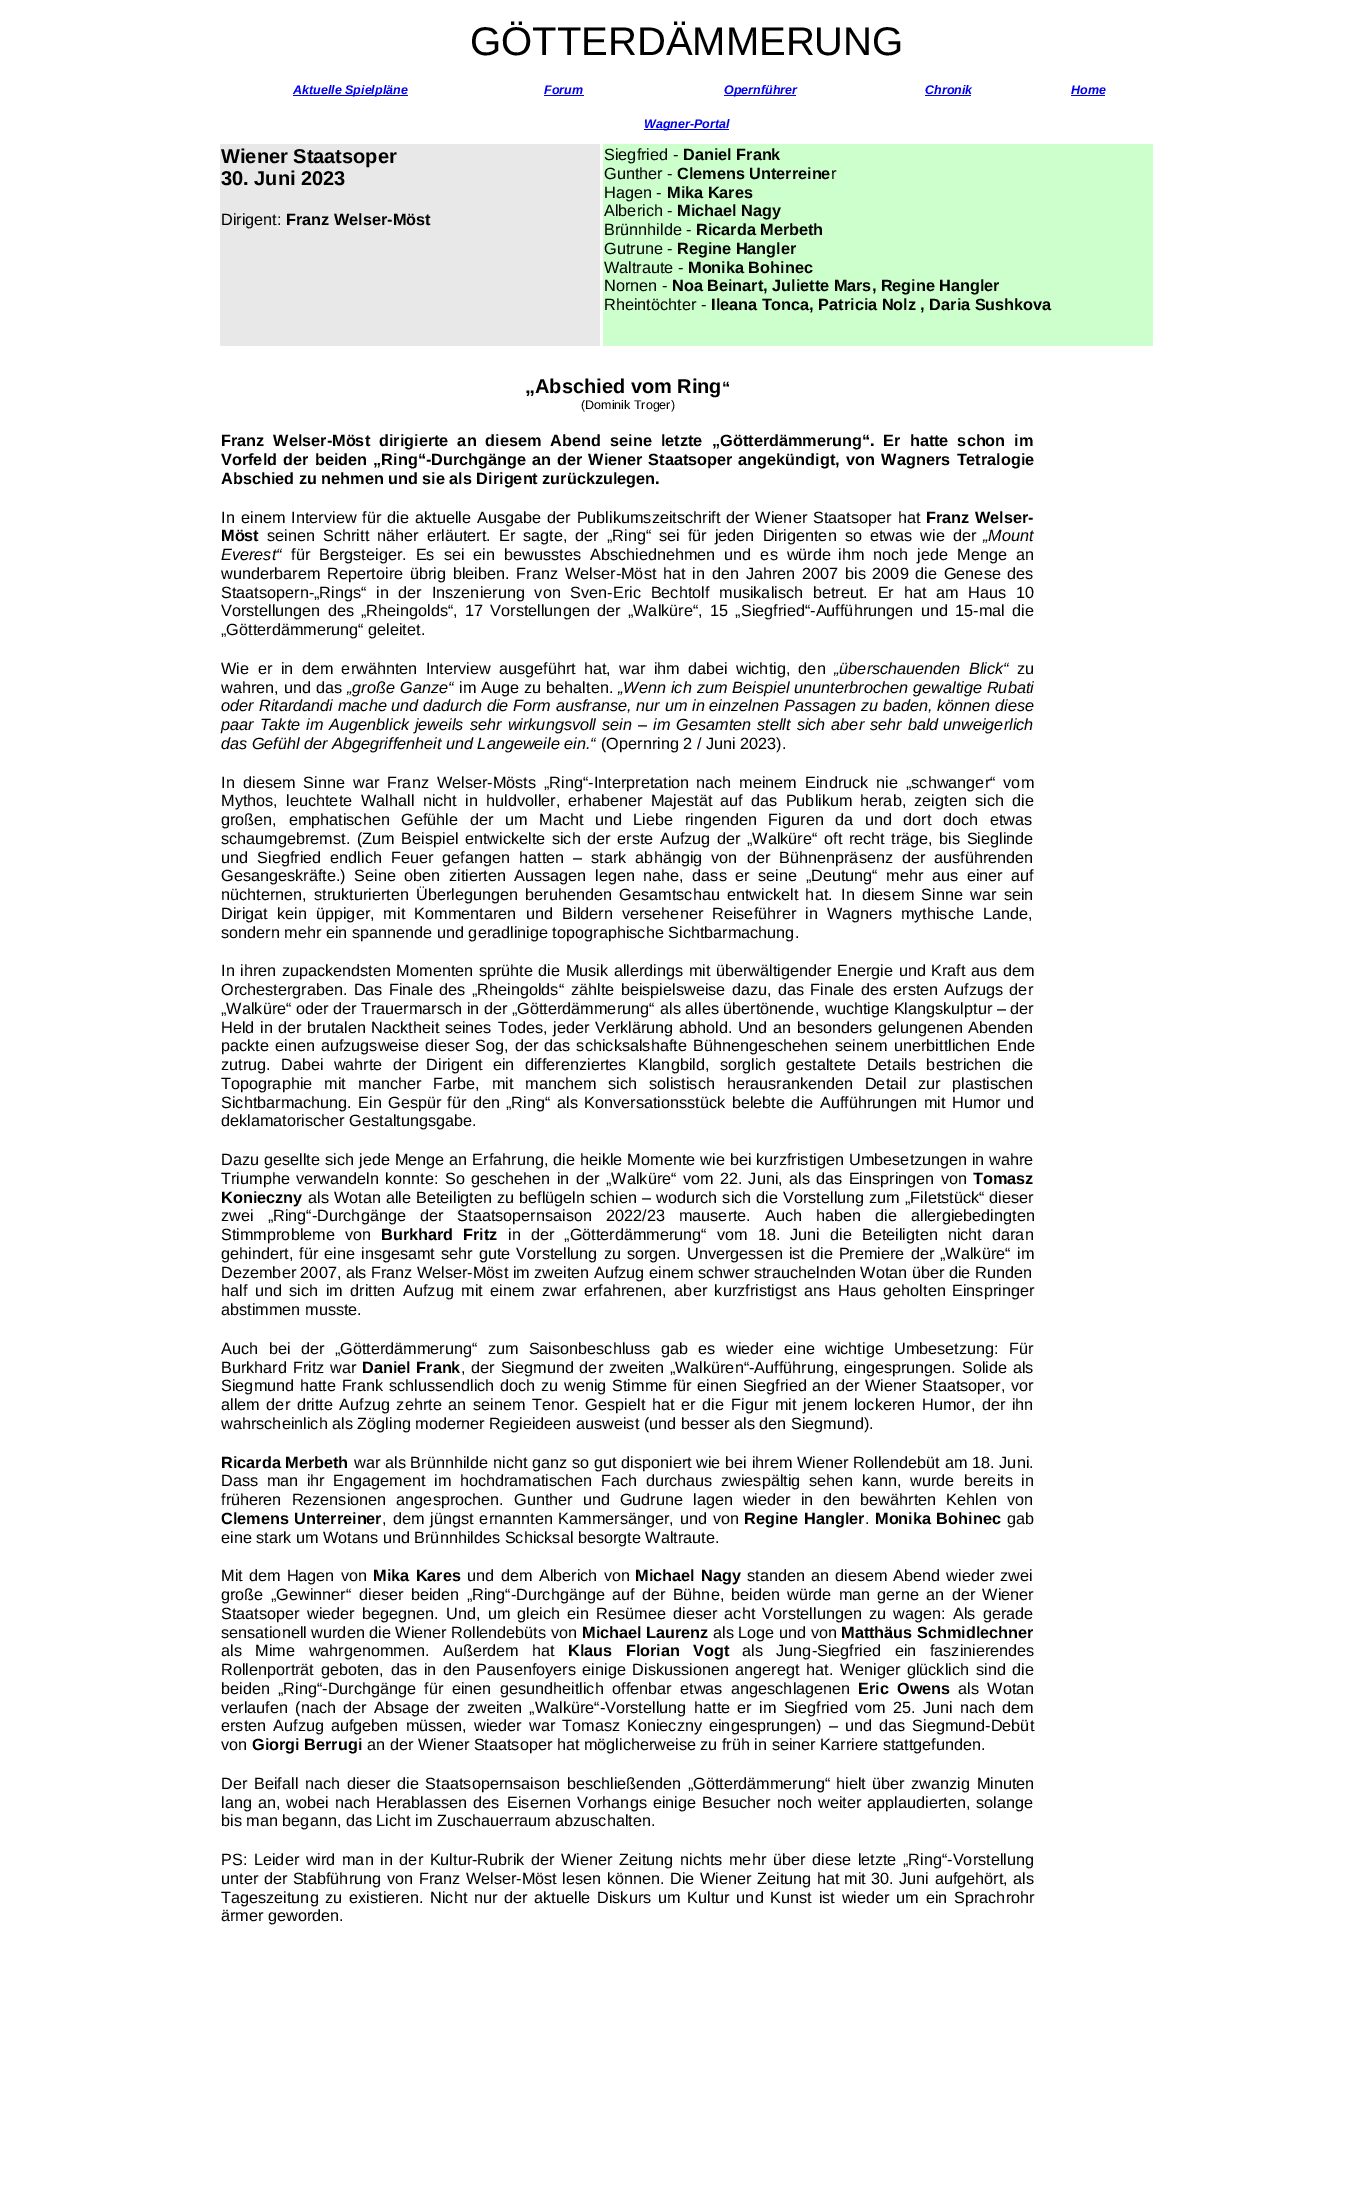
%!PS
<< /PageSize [1372 2199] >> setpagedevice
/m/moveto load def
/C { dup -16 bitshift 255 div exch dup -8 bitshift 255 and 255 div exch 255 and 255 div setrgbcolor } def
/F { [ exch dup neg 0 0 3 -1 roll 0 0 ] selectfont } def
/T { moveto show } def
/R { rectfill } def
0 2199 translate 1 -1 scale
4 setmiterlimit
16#FFFFFF C
0 0 1372 2199 R
/LiberationSans-Regular 40 F
16#000000 C
(GÖTTERDÄMMERUNG) 470 55 T
16#0000EE C
293 95 115 1 R
/LiberationSans-BoldItalic 12.5 F
(Aktuelle Spielpläne) 293 94 T
(Forum) 544 94 T
544 95 40 1 R
724 95 72 1 R
(Opernführer) 724 94 T
(Chronik) 925 94 T
925 95 46 1 R
(Home) 1071 94 T
1071 95 34 1 R
644 129 85 1 R
(Wagner-Portal) 644 128 T
16#E8E8E8 C
220 144 380 202 R
/LiberationSans-Bold 20 F
16#000000 C
(Wiener Staatsoper) 221 163 T
(30. Juni 2023) 221 185 T
/LiberationSans-Regular 16.25 F
(Dirigent:) 221 225 T
/LiberationSans-Bold 16.25 F
(Franz Welser-Möst) 286 225 T
16#CCFFCC C
603 144 550 202 R
/LiberationSans-Regular 16.25 F
16#000000 C
(Siegfried -) 604 160 T
/LiberationSans-Bold 16.25 F
(Daniel Frank) 683 160 T
/LiberationSans-Regular 16.25 F
(Gunther -) 604 179 T
/LiberationSans-Bold 16.25 F
(Clemens Unterreine) 677 179 T
/LiberationSans-Regular 16.25 F
(r) 831 179 T
(Hagen -) 604 198 T
/LiberationSans-Bold 16.25 F
(Mika Kares) 667 198 T
/LiberationSans-Regular 16.25 F
(Alberich -) 604 216 T
/LiberationSans-Bold 16.25 F
(Michael Nagy) 677 216 T
/LiberationSans-Regular 16.25 F
(Brünnhilde -) 604 235 T
/LiberationSans-Bold 16.25 F
(Ricarda Merbeth) 696 235 T
/LiberationSans-Regular 16.25 F
(Gutrune -) 604 254 T
/LiberationSans-Bold 16.25 F
(Regine Hangler) 677 254 T
/LiberationSans-Regular 16.25 F
(Waltraute -) 604 273 T
/LiberationSans-Bold 16.25 F
(Monika Bohinec) 688 273 T
/LiberationSans-Regular 16.25 F
(Nornen -) 604 291 T
/LiberationSans-Bold 16.25 F
(Noa Beinart, Juliette Mars, Regine Hangler) 672 291 T
/LiberationSans-Regular 16.25 F
(Rheintöchter -) 604 310 T
/LiberationSans-Bold 16.25 F
(Ileana Tonca, Patricia Nolz , Daria Sushkova) 711 310 T
/LiberationSans-Bold 20 F
(„Abschied vom Ring) 525 393 T
/LiberationSans-Bold 16.25 F
(“) 722 393 T
/LiberationSans-Regular 12.5 F
(\(Dominik Troger\)) 581 409 T
/LiberationSans-Bold 16.25 F
221 446 m 4.5 0 32 (Franz Welser-Möst dirigierte an diesem Abend seine letzte) widthshow
712 446 m 4.5 0 32 („Götterdämmerung“. Er hatte schon im) widthshow
221 465 m 2 0 32 (Vorfeld der) widthshow
315 465 m 1.5 0 32 (beiden „Ring“-Durchgänge an der Wiener Staatsoper angekündigt,) widthshow
846 465 m 2 0 32 (von Wagners Tetralogie) widthshow
(Abschied zu nehmen und sie als Dirigent zurückzulegen.) 221 484 T
/LiberationSans-Regular 16.25 F
(In) 221 523 T
241 523 m 1.5 0 32 (einem Interview für die aktuelle Ausgabe der Publikumszeitschrift) widthshow
726 523 m 1.5 0 32 (der Wiener Staatsoper hat) widthshow
/LiberationSans-Bold 16.25 F
926 523 m 1 0 32 (Franz Welser-) widthshow
(Möst) 221 541 T
/LiberationSans-Regular 16.25 F
(seinen) 267 541 T
323 541 m 3.5 0 32 (Schritt näher erläutert. Er sagte, der „Ring“) widthshow
659 541 m 3.5 0 32 (sei für jeden Dirigenten so etwas wie der) widthshow
/LiberationSans-Italic 16.25 F
(„Mount) 983 541 T
(Everest“) 221 560 T
/LiberationSans-Regular 16.25 F
291 560 m 4.5 0 32 (für Bergsteiger. Es sei ein bewusstes Abschiednehmen und es würde) widthshow
838 560 m 4.5 0 32 (ihm noch jede Menge an) widthshow
221 579 m 2.25 0 32 (wunderbarem Repertoire übrig bleiben. Franz) widthshow
565 579 m 2.25 0 32 (Welser-Möst hat in den Jahren 2007 bis 2009 die Genese des) widthshow
(Staatsopern-„Rings“) 221 598 T
376 598 m 5.25 0 32 (in der Inszenierung von Sven-Eric Bechtolf musikalisch betreut. Er hat) widthshow
936 598 m 5.25 0 32 (am Haus 10) widthshow
221 616 m 2.75 0 32 (Vorstellungen des „Rheingolds“, 17 Vorstellungen) widthshow
597 616 m 2.75 0 32 (der „Walküre“, 15 „Siegfried“-Aufführungen) widthshow
921 616 m 2.75 0 32 (und 15-mal die) widthshow
(„Götterdämmerung“ geleitet.) 221 635 T
(Wie) 221 674 T
258 674 m 3.75 0 32 (er in dem erwähnten Interview ausgeführt hat, war ihm dabei) widthshow
736 674 m 3.75 0 32 (wichtig, den) widthshow
/LiberationSans-Italic 16.25 F
834 674 m 3.75 0 32 („überschauenden Blick“) widthshow
/LiberationSans-Regular 16.25 F
(zu) 1017 674 T
(wahren,) 221 693 T
284 693 m .5 0 32 (und das) widthshow
/LiberationSans-Italic 16.25 F
347 693 m 1 0 32 („große Ganze“) widthshow
/LiberationSans-Regular 16.25 F
459 693 m .5 0 32 (im Auge zu behalten.) widthshow
/LiberationSans-Italic 16.25 F
618 693 m .5 0 32 („Wenn ich zum Beispiel ununterbrochen gewaltige Rubati) widthshow
(oder) 221 711 T
259 711 m .25 0 32 (Ritardandi mache und dadurch die Form ausfranse, nur um in einzelnen Passagen zu baden, können diese) widthshow
221 730 m 1.5 0 32 (paar Takte im Augenblick jeweils) widthshow
470 730 m 1.5 0 32 (sehr wirkungsvoll sein – im Gesamten stellt sich aber sehr bald) widthshow
(unweigerlich) 943 730 T
(das Gefühl der Abgegriffenheit und Langeweile ein.“) 221 749 T
/LiberationSans-Regular 16.25 F
(\(Opernring 2 / Juni 2023\).) 601 749 T
(In) 221 788 T
243 788 m 3.5 0 32 (diesem Sinne war Franz Welser-Mösts „Ring“-Interpretation) widthshow
696 788 m 3.5 0 32 (nach meinem Eindruck nie „schwanger“ vom) widthshow
221 806 m 3.75 0 32 (Mythos, leuchtete) widthshow
361 806 m 3.75 0 32 (Walhall nicht in huldvoller, erhabener Majestät auf das Publikum) widthshow
860 806 m 3.75 0 32 (herab, zeigten sich die) widthshow
221 825 m 7 0 32 (großen, emphatischen Gefühle der) widthshow
505 825 m 7 0 32 (um Macht und Liebe ringenden Figuren da und dort doch etwas) widthshow
(schaumgebremst.) 221 844 T
357 844 m 2 0 32 (\(Zum Beispiel entwickelte sich der erste Aufzug der „Walküre“) widthshow
824 844 m 2 0 32 (oft recht träge, bis Sieglinde) widthshow
221 863 m 4.5 0 32 (und Siegfried endlich Feuer gefangen) widthshow
519 863 m 4.5 0 32 (hatten – stark abhängig von der Bühnenpräsenz der) widthshow
(ausführenden) 934 863 T
221 881 m 4 0 32 (Gesangeskräfte.\) Seine oben zitierten Aussagen) widthshow
595 881 m 4 0 32 (legen nahe, dass er seine „Deutung“ mehr aus einer auf) widthshow
(nüchternen,) 221 900 T
314 900 m 2.75 0 32 (strukturierten Überlegungen beruhenden Gesamtschau entwickelt hat.) widthshow
841 900 m 2.75 0 32 (In diesem Sinne war sein) widthshow
221 919 m 4.5 0 32 (Dirigat kein üppiger, mit Kommentaren) widthshow
526 919 m 4.5 0 32 (und Bildern versehener Reiseführer in Wagners mythische Lande,) widthshow
(sondern mehr ein spannende und geradlinige topographische Sichtbarmachung.) 221 938 T
(In) 221 976 T
240 976 m 1 0 32 (ihren zupackendsten Momenten sprühte die Musik allerdings mit überwältigender) widthshow
837 976 m 1 0 32 (Energie und Kraft aus dem) widthshow
221 995 m 1.75 0 32 (Orchestergraben. Das Finale des „Rheingolds“) widthshow
571 995 m 1.75 0 32 (zählte beispielsweise dazu, das Finale des ersten Aufzugs der) widthshow
(„Walküre“) 221 1014 T
(oder der Trauermarsch in der „Götterdämmerung“) 296 1014 T
(als alles übertönende) 660 1014 T
(,) 815 1014 T
(wuchtige Klangskulptur – der) 825 1014 T
221 1033 m 1 0 32 (Held in der brutalen Nacktheit seines) widthshow
498 1033 m 1 0 32 (Todes, jeder Verklärung abhold. Und an besonders gelungenen Abenden) widthshow
221 1051 m 1.5 0 32 (packte einen aufzugsweise dieser Sog, der das schicksalshafte Bühnengeschehen) widthshow
835 1051 m 2 0 32 (seinem unerbittlichen Ende) widthshow
221 1070 m 5.75 0 32 (zutrug. Dabei wahrte der Dirigent ein differenziertes) widthshow
638 1070 m 5.75 0 32 (Klangbild, sorglich gestaltete Details bestrichen die) widthshow
221 1089 m 7.25 0 32 (Topographie mit) widthshow
358 1089 m 7.25 0 32 (mancher Farbe, mit manchem sich solistisch herausrankenden Detail zur) widthshow
(plastischen) 952 1089 T
221 1108 m 1.75 0 32 (Sichtbarmachung. Ein Gespür für den „Ring“) widthshow
557 1108 m 2 0 32 (als Konversationsstück belebte die Aufführungen mit Humor) widthshow
(und) 1007 1108 T
(deklamatorischer Gestaltungsgabe.) 221 1126 T
(Dazu) 221 1165 T
264 1165 m .5 0 32 (gesellte sich jede Menge an Erfahrung, die heikle Momente wie bei kurzfristigen) widthshow
(Umbesetzungen in wahre) 849 1165 T
221 1184 m 1.75 0 32 (Triumphe verwandeln konnte: So geschehen in der) widthshow
606 1184 m 1.75 0 32 („Walküre“ vom 22. Juni, als das Einspringen von) widthshow
/LiberationSans-Bold 16.25 F
(Tomasz) 973 1184 T
(Konieczny) 221 1203 T
/LiberationSans-Regular 16.25 F
308 1203 m .5 0 32 (als Wotan alle Beteiligten zu beflügeln) widthshow
590 1203 m .5 0 32 (schien – wodurch sich die Vorstellung zum „Filetstück“) widthshow
(dieser) 989 1203 T
221 1221 m 9.5 0 32 (zwei „Ring“-Durchgänge der Staatsopernsaison) widthshow
606 1221 m 9.5 0 32 (2022/23 mauserte. Auch haben die allergiebedingten) widthshow
221 1240 m 5.5 0 32 (Stimmprobleme von) widthshow
/LiberationSans-Bold 16.25 F
381 1240 m 5.5 0 32 (Burkhard Fritz) widthshow
/LiberationSans-Regular 16.25 F
508 1240 m 5.5 0 32 (in der „Götterdämmerung“) widthshow
717 1240 m 5.5 0 32 (vom 18. Juni die Beteiligten nicht daran) widthshow
221 1259 m 1.5 0 32 (gehindert, für eine insgesamt) widthshow
441 1259 m 1.5 0 32 (sehr gute Vorstellung zu sorgen. Unvergessen ist die Premiere der „Walküre“) widthshow
(im) 1017 1259 T
(Dezember 2007, als Franz Welser-Möst im zweiten Aufzug einem schwer strauchelnden Wotan über die Runden) 221 1278 T
221 1296 m 3 0 32 (half und sich im dritten) widthshow
403 1296 m 3 0 32 (Aufzug mit einem zwar erfahrenen, aber kurzfristigst ans Haus geholten) widthshow
(Einspringer) 952 1296 T
(abstimmen musste.) 221 1315 T
(Auch) 221 1354 T
269 1354 m 5.75 0 32 (bei der „Götterdämmerung“ zum Saisonbeschluss) widthshow
661 1354 m 5.75 0 32 (gab es wieder eine wichtige Umbesetzung: Für) widthshow
221 1373 m 1.25 0 32 (Burkhard Fritz war) widthshow
/LiberationSans-Bold 16.25 F
362 1373 m 1 0 32 (Daniel Frank) widthshow
/LiberationSans-Regular 16.25 F
461 1373 m 1.25 0 32 (, der Siegmund der zweiten „Walküren“-Aufführung,) widthshow
844 1373 m 1.25 0 32 (eingesprungen. Solide als) widthshow
221 1391 m 1.1 0 32 (Siegmund hatte Frank schlussendlich doch zu) widthshow
564 1391 m 1.1 0 32 (wenig Stimme für einen Siegfried an der Wiener Staatsoper, vor) widthshow
221 1410 m 2.1 0 32 (allem der dritte Aufzug zehrte an seinem Tenor. Gespielt hat er die) widthshow
731 1410 m 2.1 0 32 (Figur mit jenem lockeren Humor, der ihn) widthshow
(wahrscheinlich als Zögling moderner Regieideen ausweist \(und besser als den Siegmund\).) 221 1429 T
/LiberationSans-Bold 16.25 F
(Ricarda Merbeth) 221 1468 T
/LiberationSans-Regular 16.25 F
354 1468 m .25 0 32 (war als Brünnhilde nicht ganz so gut disponiert) widthshow
696 1468 m .25 0 32 (wie bei ihrem Wiener Rollendebüt am 18. Juni.) widthshow
221 1486 m 4 0 32 (Dass man ihr Engagement) widthshow
434 1486 m 4 0 32 (im hochdramatischen Fach durchaus zwiespältig sehen kann, wurde) widthshow
964 1486 m 4 0 32 (bereits in) widthshow
221 1505 m 5.5 0 32 (früheren Rezensionen angesprochen. Gunther und Gudrune) widthshow
693 1505 m 5.5 0 32 (lagen wieder in den bewährten Kehlen von) widthshow
/LiberationSans-Bold 16.25 F
221 1524 m 1 0 32 (Clemens Unterreiner) widthshow
/LiberationSans-Regular 16.25 F
(,) 382 1524 T
393 1524 m 1.25 0 32 (dem jüngst ernannten Kammersänger, und von) widthshow
/LiberationSans-Bold 16.25 F
(Regine) 744 1524 T
(Hangler) 804 1524 T
/LiberationSans-Regular 16.25 F
(.) 865 1524 T
/LiberationSans-Bold 16.25 F
875 1524 m 1 0 32 (Monika Bohinec) widthshow
/LiberationSans-Regular 16.25 F
(gab) 1007 1524 T
(eine stark um Wotans und Brünnhildes Schicksal besorgte Waltraute.) 221 1543 T
(Mit) 221 1581 T
249 1581 m 1.5 0 32 (dem Hagen von) widthshow
/LiberationSans-Bold 16.25 F
373 1581 m 2 0 32 (Mika Kares) widthshow
/LiberationSans-Regular 16.25 F
467 1581 m 2 0 32 (und dem Alberich von) widthshow
/LiberationSans-Bold 16.25 F
(Michael) 635 1581 T
(Nagy) 701 1581 T
/LiberationSans-Regular 16.25 F
747 1581 m 1.5 0 32 (standen an diesem Abend wieder zwei) widthshow
221 1600 m 2.75 0 32 (große „Gewinner“) widthshow
359 1600 m 2.75 0 32 (dieser beiden „Ring“-Durchgänge auf der Bühne,) widthshow
731 1600 m 2.75 0 32 (beiden würde man gerne an der Wiener) widthshow
221 1619 m 2.75 0 32 (Staatsoper wieder begegnen.) widthshow
446 1619 m 2.75 0 32 (Und, um gleich ein Resümee dieser acht Vorstellungen zu wagen:) widthshow
953 1619 m 2.75 0 32 (Als gerade) widthshow
(sensationell wurden die Wiener Rollendebüts von) 221 1638 T
/LiberationSans-Bold 16.25 F
(Michael Laurenz) 582 1638 T
/LiberationSans-Regular 16.25 F
(als Loge und von) 713 1638 T
/LiberationSans-Bold 16.25 F
(Matthäus Schmidlechner) 841 1638 T
/LiberationSans-Regular 16.25 F
221 1656 m 9 0 32 (als Mime wahrgenommen. Außerdem hat) widthshow
/LiberationSans-Bold 16.25 F
568 1656 m 9 0 32 (Klaus Florian Vogt) widthshow
/LiberationSans-Regular 16.25 F
742 1656 m 9 0 32 (als Jung-Siegfried ein faszinierendes) widthshow
221 1675 m 2 0 32 (Rollenporträt geboten,) widthshow
391 1675 m 2 0 32 (das in den Pausenfoyers einige Diskussionen angeregt hat. Weniger glücklich) widthshow
976 1675 m 2.1 0 32 (sind die) widthshow
221 1694 m 3.75 0 32 (beiden „Ring“-Durchgänge für einen gesundheitlich) widthshow
612 1694 m 4 0 32 (offenbar etwas angeschlagenen) widthshow
/LiberationSans-Bold 16.25 F
858 1694 m 3.75 0 32 (Eric Owens) widthshow
/LiberationSans-Regular 16.25 F
958 1694 m 4 0 32 (als Wotan) widthshow
221 1713 m 2.75 0 32 (verlaufen \(nach der Absage der zweiten „Walküre“-Vorstellung) widthshow
694 1713 m 2.75 0 32 (hatte er im Siegfried vom 25. Juni nach dem) widthshow
221 1731 m 2.5 0 32 (ersten Aufzug aufgeben müssen,) widthshow
474 1731 m 2.5 0 32 (wieder war Tomasz Konieczny eingesprungen\) – und das Siegmund-Debüt) widthshow
(von) 221 1750 T
/LiberationSans-Bold 16.25 F
(Giorgi Berrugi) 252 1750 T
/LiberationSans-Regular 16.25 F
(an der Wiener Staatsoper hat möglicherweise zu früh in seiner Karriere stattgefunden.) 367 1750 T
(Der) 221 1789 T
254 1789 m 2 0 32 (Beifall nach dieser die Staatsopernsaison beschließenden „Götterdämmerung“) widthshow
836 1789 m 2 0 32 (hielt über zwanzig Minuten) widthshow
221 1808 m 1.5 0 32 (lang an, wobei nach Herablassen des) widthshow
507 1808 m 1.5 0 32 (Eisernen Vorhangs einige Besucher noch weiter applaudierten, solange) widthshow
(bis man begann, das Licht im Zuschauerraum abzuschalten.) 221 1826 T
221 1865 m 2.1 0 32 (PS: Leider wird man in der Kultur-Rubrik der Wiener Zeitung nichts mehr) widthshow
773 1865 m 2.1 0 32 (über diese letzte „Ring“-Vorstellung) widthshow
221 1884 m 1 0 32 (unter der Stabführung) widthshow
387 1884 m 1 0 32 (von Franz Welser-Möst lesen können. Die Wiener Zeitung hat) widthshow
844 1884 m 1 0 32 (mit 30. Juni aufgehört, als) widthshow
221 1903 m 2.25 0 32 (Tageszeitung zu existieren. Nicht nur) widthshow
504 1903 m 2.25 0 32 (der aktuelle Diskurs um Kultur und Kunst ist wieder um ein Sprachrohr) widthshow
(ärmer geworden.) 221 1921 T
showpage
